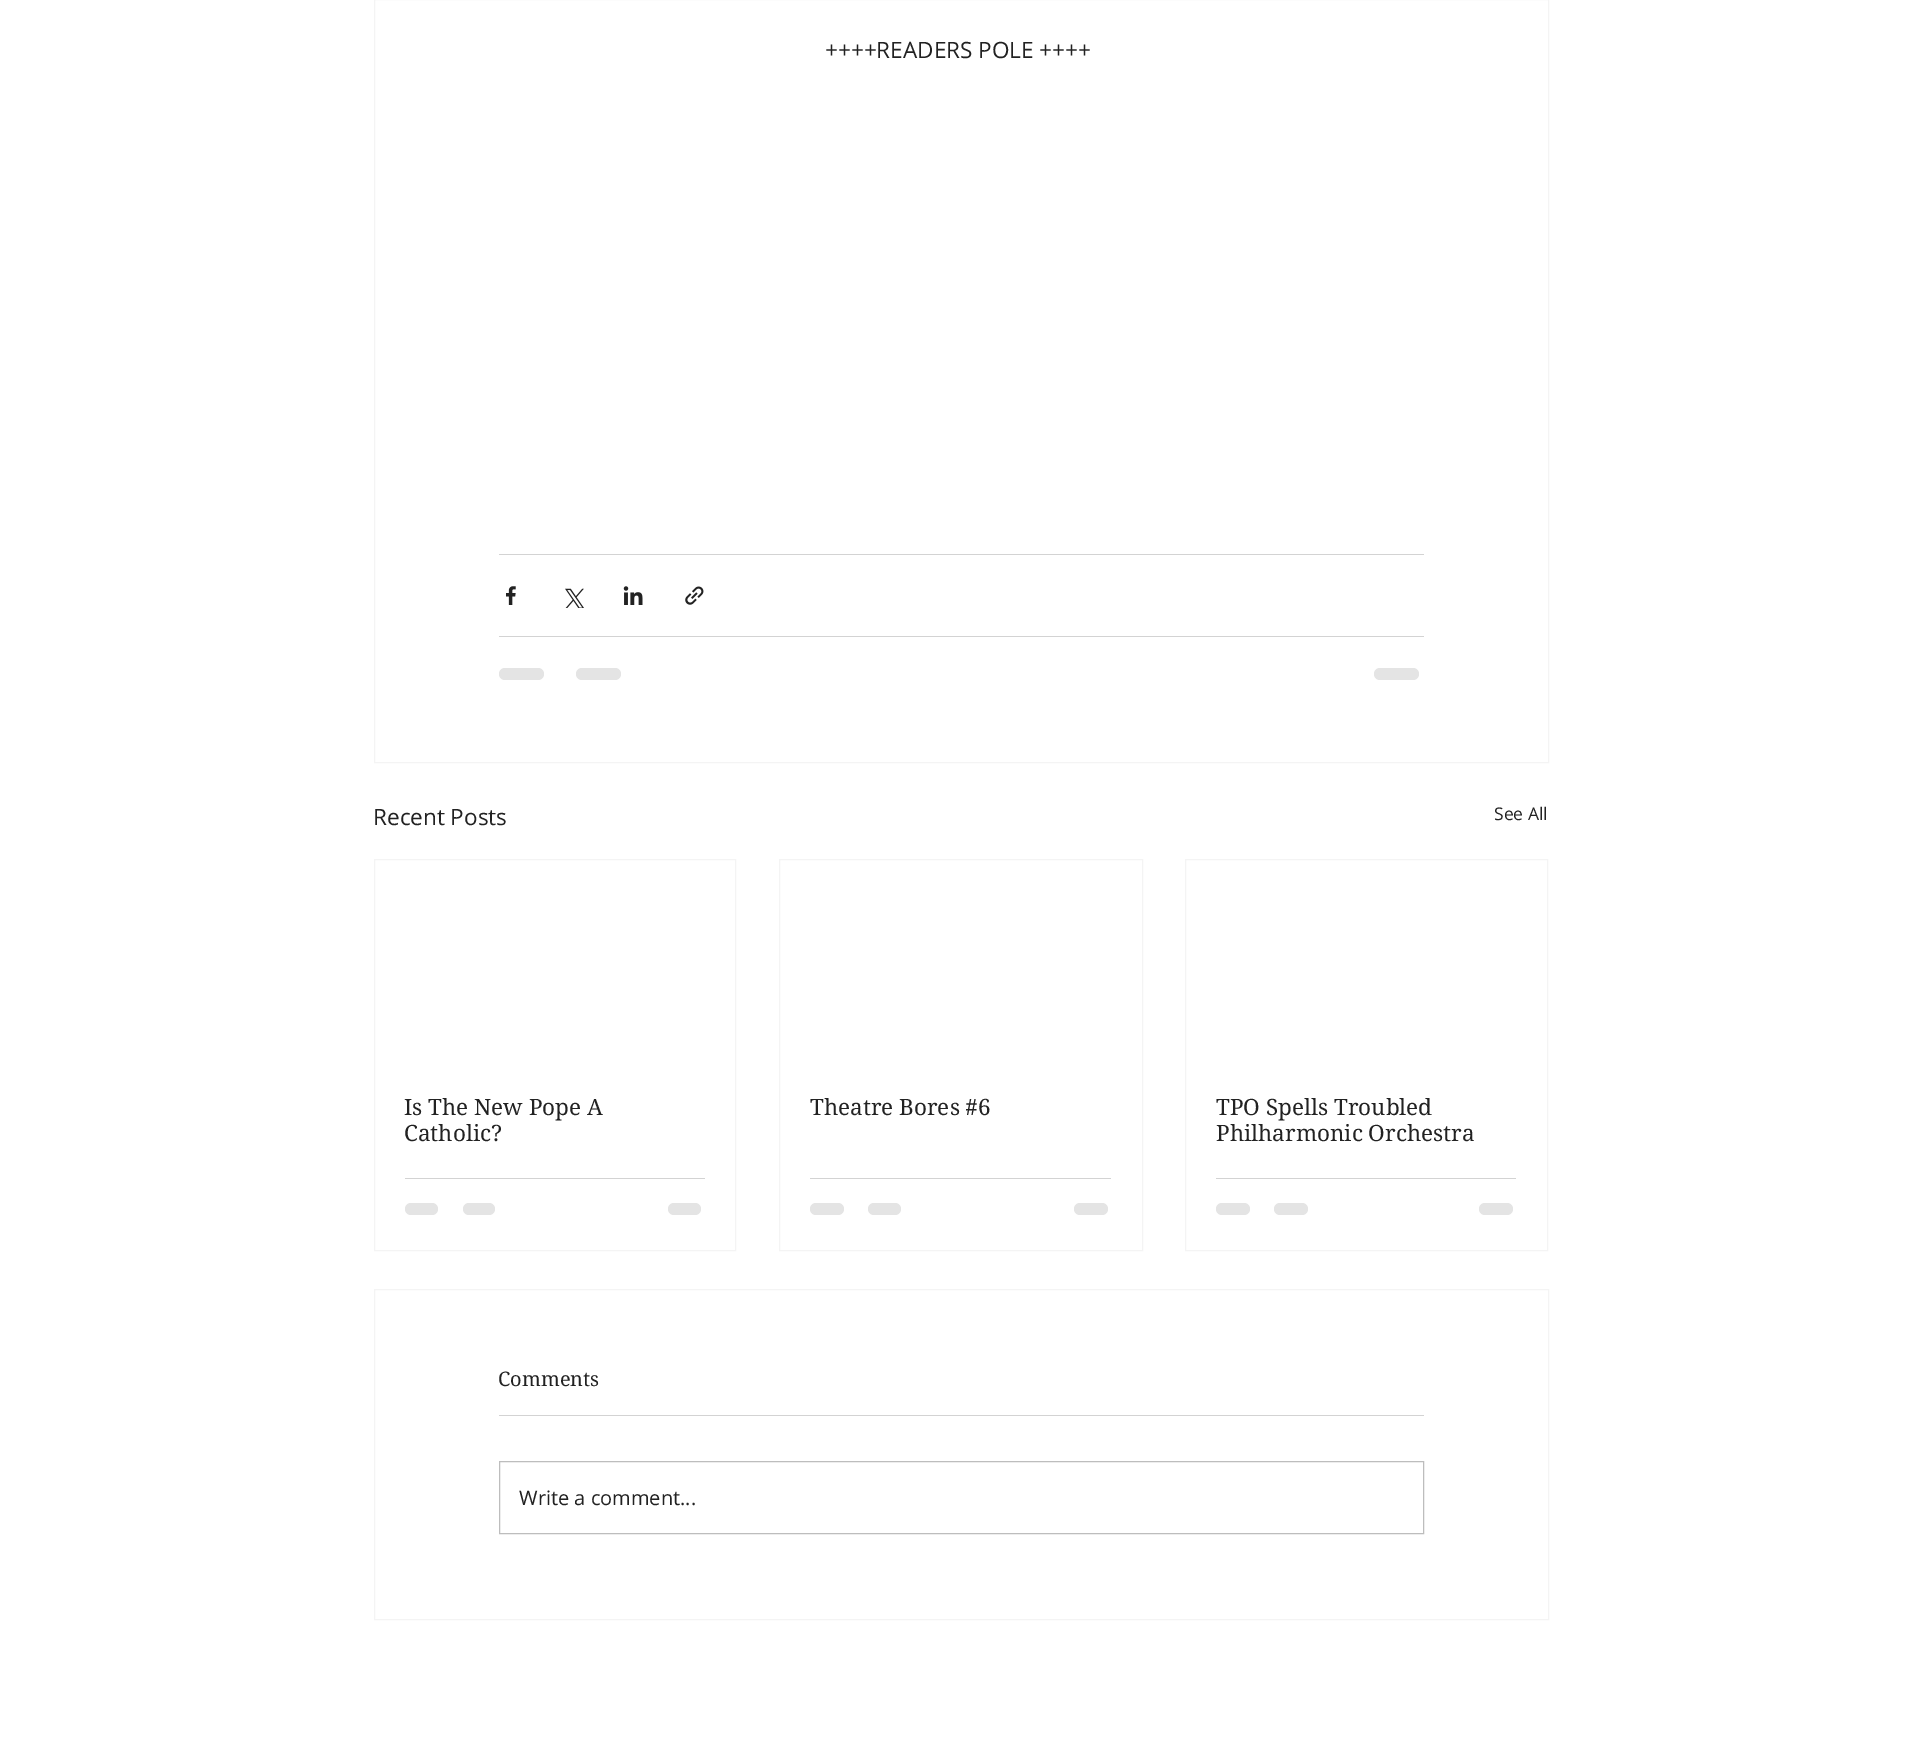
%!PS
<< /PageSize [1921 1761] >> setpagedevice
/f/fill load def
/C { dup -16 bitshift 255 div exch dup -8 bitshift 255 and 255 div exch 255 and 255 div setrgbcolor } def
/F { [ exch dup neg 0 0 3 -1 roll 0 0 ] selectfont } def
/T { moveto show } def
/R { rectfill } def
/Q { 5 dict begin { /r /h /w /y /x } { exch def } forall
  x r add y moveto x w add y 2 copy h add r arct x w add y h add x 1 index r arct
  x y h add x y r arct x y 2 copy exch w add exch r arct closepath end } def
/I { 5 dict begin { /h /w /y /x /name } { exch def } forall
  gsave x y translate w h scale
  w h 8 [w 0 0 h 0 0] name (r) file false 3 colorimage grestore end } def
0 1761 translate 1 -1 scale
4 setmiterlimit
16#FFFFFF C
0 0 1921 1761 R
16#F4F4F4 C
374.5 -.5 1174 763 rectstroke
/OpenSans-Regular 22.5 F
16#222222 C
(++++READERS POLE ++++) 825 58 T
16#D3D3D3 C
499 554 925 1 R
(1.rgb) 506 586 10 19 I
(2.rgb) 565 588 19 20 I
(3.rgb) 623 586 20 19 I
(4.rgb) 685 586 19 19 I
499 636 925 1 R
16#E4E4E4 C
499 668 45 12 6 Q f
576 668 45 12 6 Q f
1374 668 45 12 6 Q f
16#222222 C
(Recent Posts) 373 825 T
/OpenSans-Regular 17.5 F
(See All) 1494 820 T
16#F4F4F4 C
374.5 859.5 361 391 rectstroke
/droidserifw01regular-Regular 22.5 F
16#222222 C
(Is The New Pope A) 404 1115 T
(Catholic?) 404 1141 T
16#D3D3D3 C
405 1178 300 1 R
16#E4E4E4 C
405 1203 33 12 6 Q f
463 1203 32 12 6 Q f
668 1203 33 12 6 Q f
16#F4F4F4 C
779.5 859.5 363 391 rectstroke
16#222222 C
(Theatre Bores #6) 810 1115 T
16#D3D3D3 C
810 1178 301 1 R
16#E4E4E4 C
810 1203 34 12 6 Q f
868 1203 33 12 6 Q f
1074 1203 34 12 6 Q f
16#F4F4F4 C
1185.5 859.5 362 391 rectstroke
16#222222 C
(TPO Spells Troubled) 1216 1115 T
(Philharmonic Orchestra) 1216 1141 T
16#D3D3D3 C
1216 1178 300 1 R
16#E4E4E4 C
1216 1203 34 12 6 Q f
1274 1203 34 12 6 Q f
1479 1203 34 12 6 Q f
16#F4F4F4 C
374.5 1289.5 1174 330 rectstroke
/droidserifw01regular-Regular 20 F
16#222222 C
(Comments) 498 1386 T
16#D3D3D3 C
499 1415 925 1 R
16#BDBDBD C
499.5 1461.5 924 72 rectstroke
/OpenSans-Regular 20 F
16#222222 C
(Write a comment...) 519 1505 T
showpage
